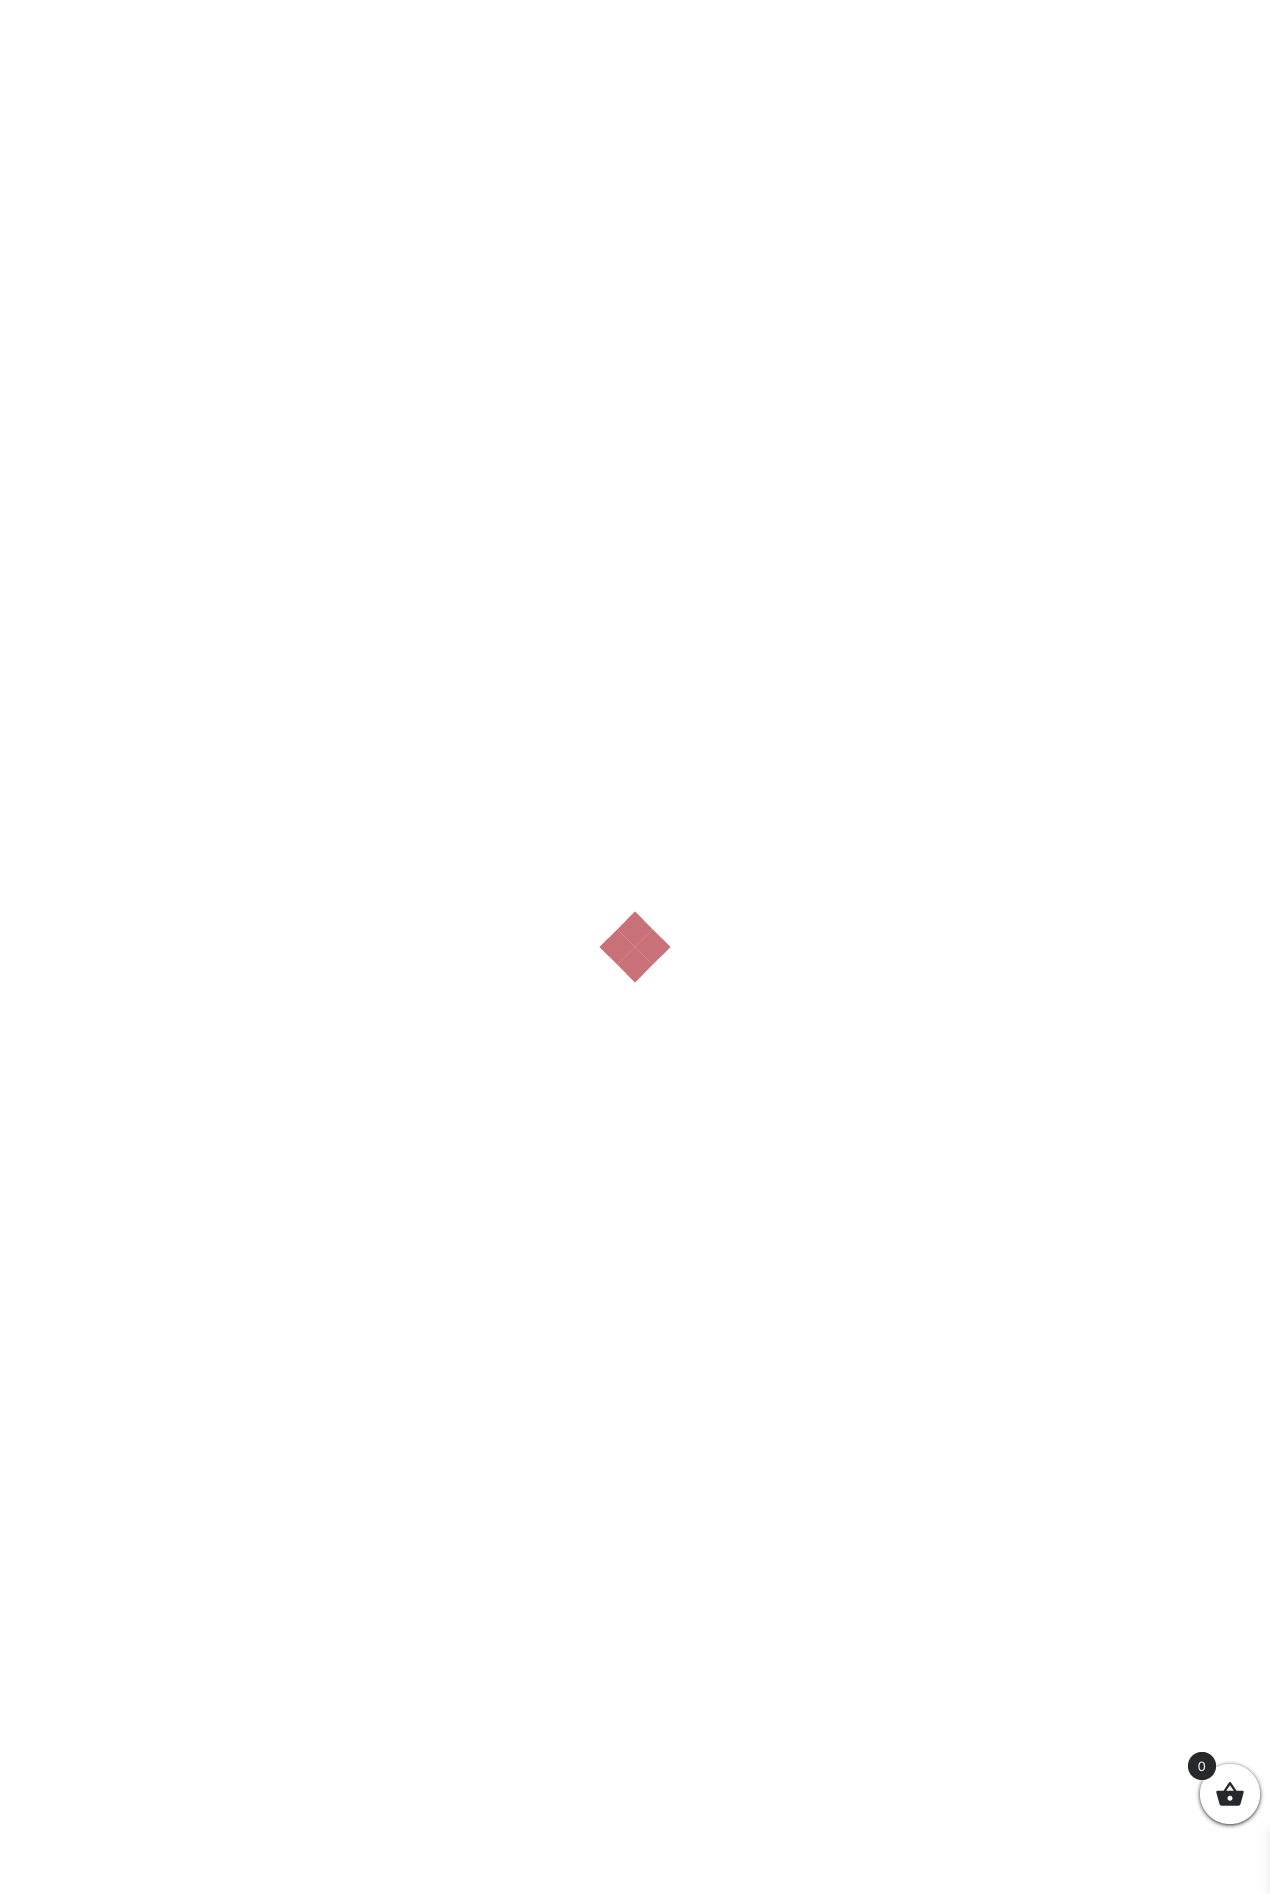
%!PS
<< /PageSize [1270 1894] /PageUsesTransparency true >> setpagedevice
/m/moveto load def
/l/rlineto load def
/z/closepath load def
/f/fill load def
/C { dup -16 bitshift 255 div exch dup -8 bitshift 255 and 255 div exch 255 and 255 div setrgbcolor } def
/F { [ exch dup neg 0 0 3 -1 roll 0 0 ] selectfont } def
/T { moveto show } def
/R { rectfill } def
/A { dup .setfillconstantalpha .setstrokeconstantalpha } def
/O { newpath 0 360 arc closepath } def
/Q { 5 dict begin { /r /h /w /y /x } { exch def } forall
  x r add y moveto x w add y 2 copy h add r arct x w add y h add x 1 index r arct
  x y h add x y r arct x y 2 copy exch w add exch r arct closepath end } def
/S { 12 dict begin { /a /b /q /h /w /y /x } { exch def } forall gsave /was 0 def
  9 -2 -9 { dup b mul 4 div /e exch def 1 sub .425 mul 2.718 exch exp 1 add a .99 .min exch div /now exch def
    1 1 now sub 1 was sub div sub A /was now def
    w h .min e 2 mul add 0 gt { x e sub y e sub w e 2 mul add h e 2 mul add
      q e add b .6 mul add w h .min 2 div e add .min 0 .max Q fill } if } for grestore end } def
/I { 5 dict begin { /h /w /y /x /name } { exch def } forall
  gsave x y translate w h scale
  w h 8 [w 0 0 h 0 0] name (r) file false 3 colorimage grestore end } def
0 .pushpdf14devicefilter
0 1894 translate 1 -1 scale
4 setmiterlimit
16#FFFFFF C
0 0 1270 1894 R
16#C97178 C
635 911.5 m 17.5 18 l -17.5 17.5 l -17.5 -17.5 l z f
617.5 929.5 m 17.5 17.5 l -17.5 17.5 l -18 -17.5 l z f
652.5 929.5 m 18 17.5 l -18 17.5 l -17.5 -17.5 l z f
635 947 m 17.5 17.5 l -17.5 18 l -17.5 -18 l z f
16#25292C C
1200 1765 60 60 30 2 1 S
16#000000 C
1270 1833 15 60 0 5 .1 S
16#FFFFFF C
1230 1794 30 O f
16#25292C C
1202 1766 14 O f
/Lato-Regular 13 F
16#FFFFFF C
(0) 1198 1771 T
(1.rgb) 1216 1782 28 24 I
.poppdf14devicefilter showpage
